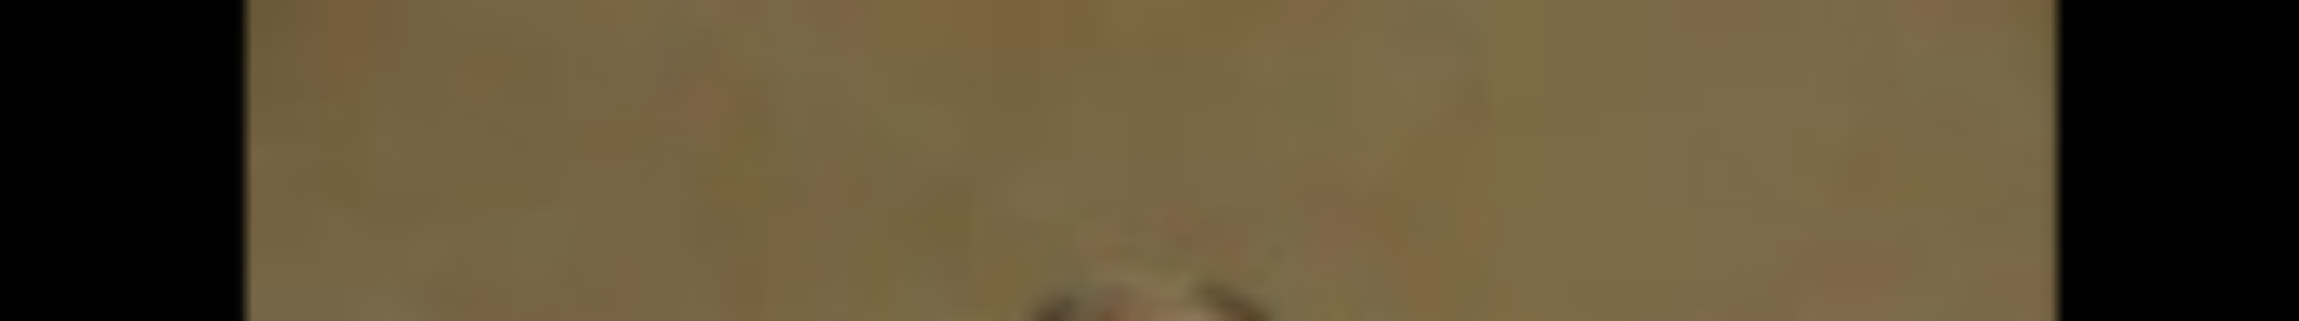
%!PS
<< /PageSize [2299 321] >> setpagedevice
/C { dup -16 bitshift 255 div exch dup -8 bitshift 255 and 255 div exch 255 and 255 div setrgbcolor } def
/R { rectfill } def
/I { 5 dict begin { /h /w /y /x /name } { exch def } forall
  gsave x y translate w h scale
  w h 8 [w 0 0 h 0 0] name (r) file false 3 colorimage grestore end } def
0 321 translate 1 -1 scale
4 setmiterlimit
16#000000 C
0 0 2299 321 R
(1.rgb) 235 0 1829 321 I
showpage
